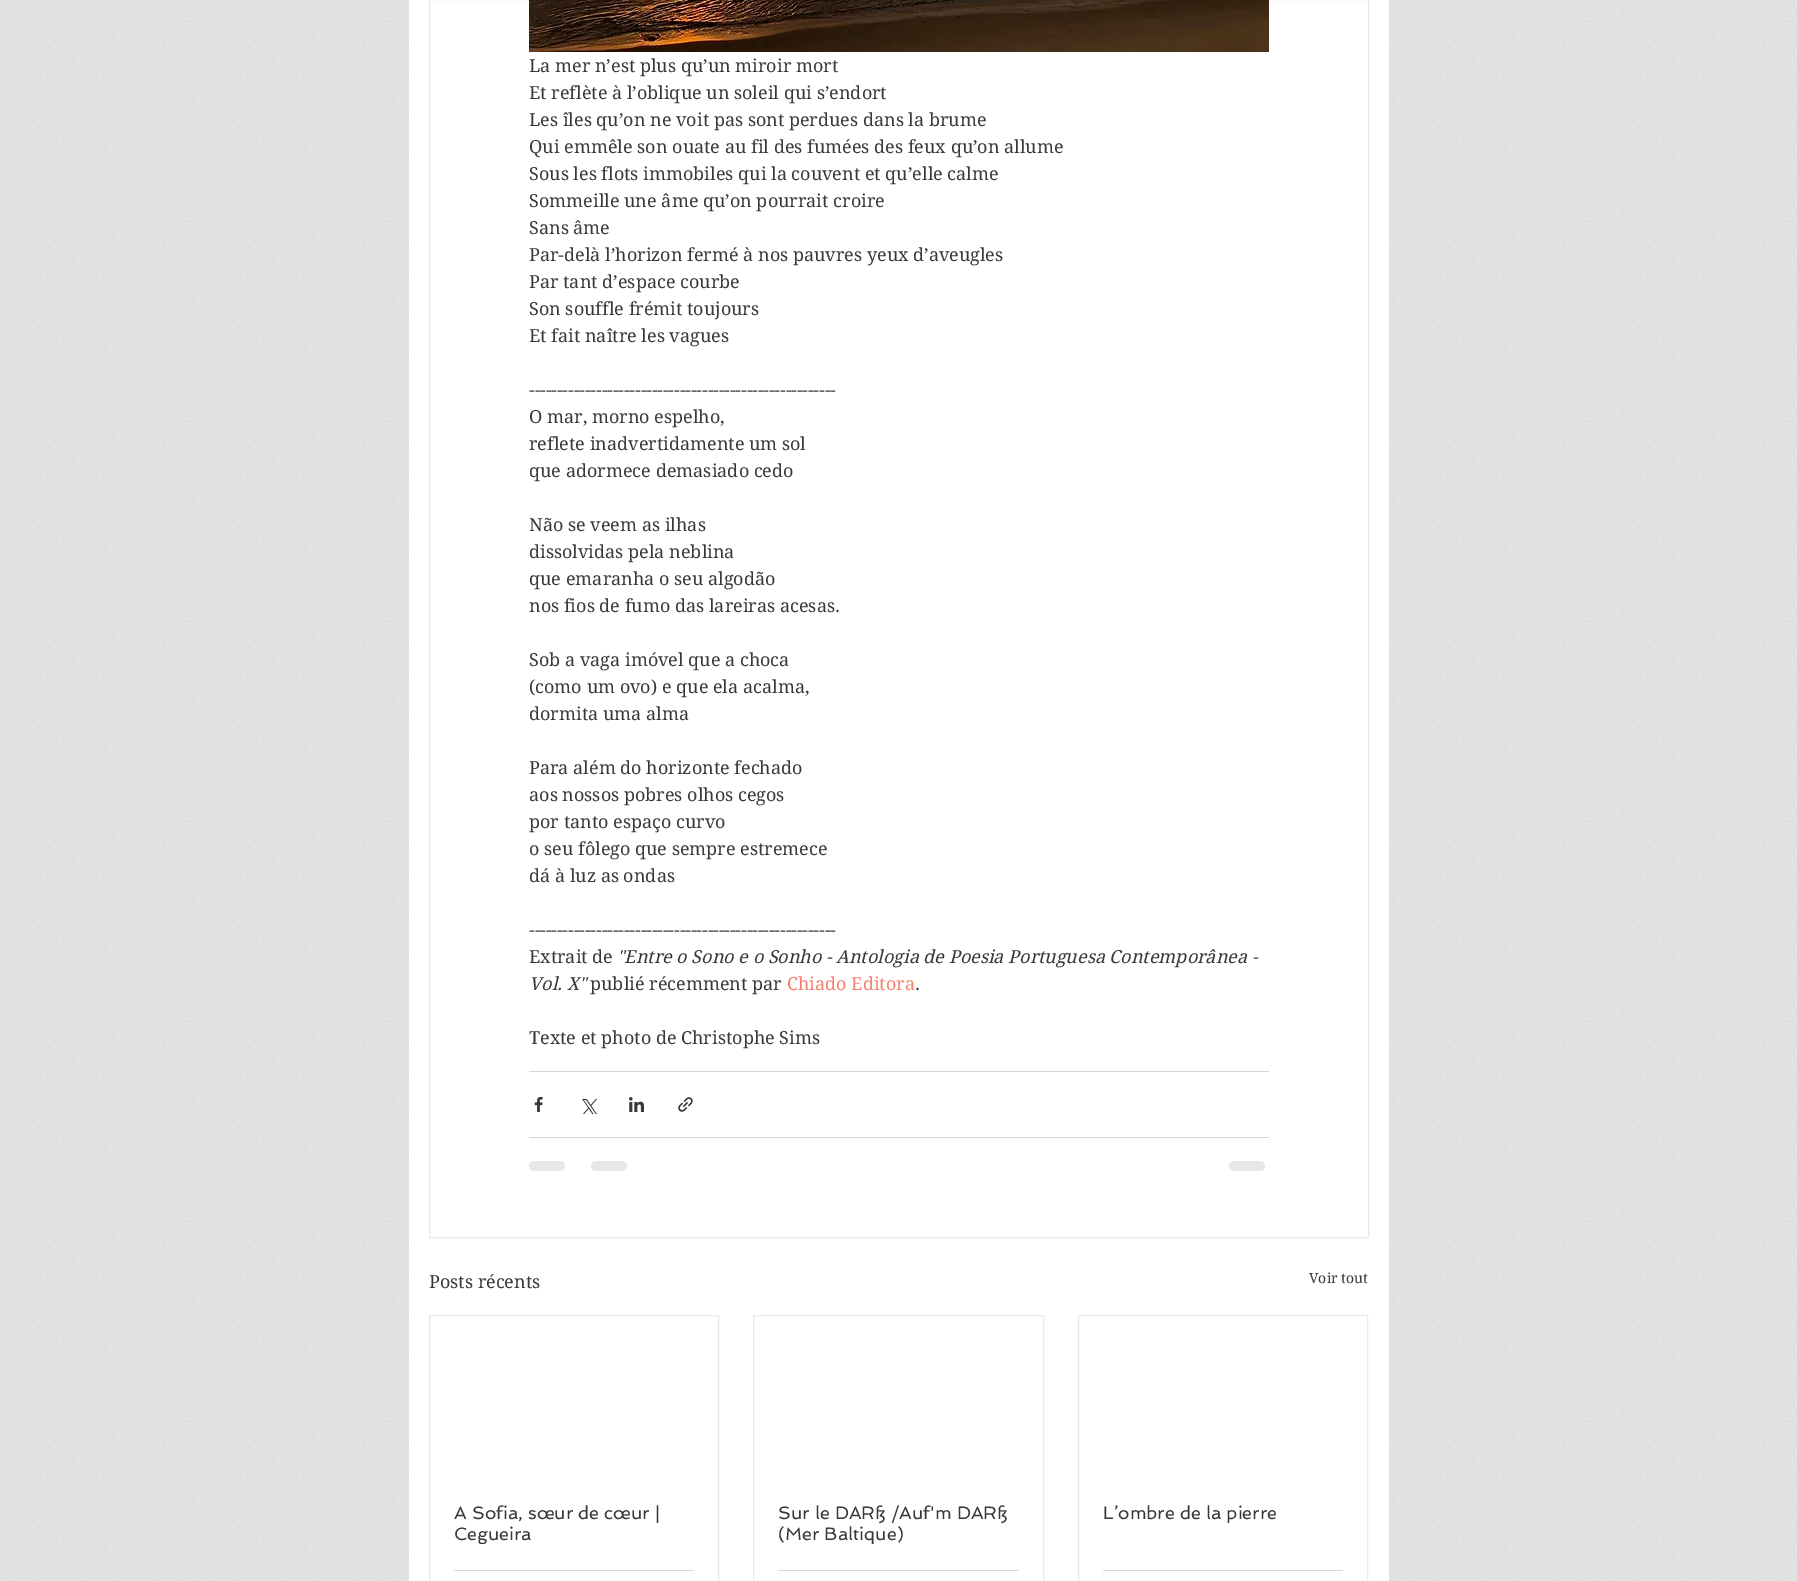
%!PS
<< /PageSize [1797 1581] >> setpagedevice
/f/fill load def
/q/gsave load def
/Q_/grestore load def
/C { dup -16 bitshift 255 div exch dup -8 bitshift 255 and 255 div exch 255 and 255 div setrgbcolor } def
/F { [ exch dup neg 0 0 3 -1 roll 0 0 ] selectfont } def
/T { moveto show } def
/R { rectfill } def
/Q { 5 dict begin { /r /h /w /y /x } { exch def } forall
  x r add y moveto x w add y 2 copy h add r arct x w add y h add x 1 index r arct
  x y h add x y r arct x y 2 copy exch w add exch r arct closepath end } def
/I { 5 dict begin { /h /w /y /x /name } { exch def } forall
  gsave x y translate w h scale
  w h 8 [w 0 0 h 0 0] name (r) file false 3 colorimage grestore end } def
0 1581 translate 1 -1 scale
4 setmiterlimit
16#E3E3E3 C
0 0 1797 1581 R
(1.rgb) 0 0 1797 1581 I
16#FFFFFF C
409 0 980 1581 R
16#EAEAEA C
429.5 -.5 939 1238 rectstroke
(2.rgb) 529 0 740 52 I
/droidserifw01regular-Regular 18 F
16#393838 C
(La mer n’est plus qu’un miroir mort) 529 72 T
(Et reflète à l’oblique un soleil qui s’endort) 529 99 T
(Les îles qu’on ne voit pas sont perdues dans la brume) 529 126 T
(Qui emmêle son ouate au fil des fumées des feux qu’on allume) 529 153 T
(Sous les flots immobiles qui la couvent et qu’elle calme) 529 180 T
(Sommeille une âme qu’on pourrait croire) 529 207 T
(Sans âme) 529 234 T
(Par-delà l’horizon fermé à nos pauvres yeux d’aveugles) 529 261 T
(Par tant d’espace courbe) 529 288 T
(Son souffle frémit toujours) 529 315 T
(Et fait naître les vagues) 529 342 T
(-------------------------------------------------------) 529 396 T
(O mar, morno espelho,) 529 423 T
(reflete inadvertidamente um sol) 529 450 T
(que adormece demasiado cedo) 529 477 T
(Não se veem as ilhas) 529 531 T
(dissolvidas pela neblina) 529 558 T
(que emaranha o seu algodão) 529 585 T
(nos fios de fumo das lareiras acesas.) 529 612 T
(Sob a vaga imóvel que a choca) 529 666 T
(\(como um ovo\) e que ela acalma,) 529 693 T
(dormita uma alma) 529 720 T
(Para além do horizonte fechado) 529 774 T
(aos nossos pobres olhos cegos) 529 801 T
(por tanto espaço curvo) 529 828 T
(o seu fôlego que sempre estremece) 529 855 T
(dá à luz as ondas) 529 882 T
(-------------------------------------------------------) 529 936 T
(Extrait de) 529 963 T
/droidserifw01regular-Italic 18 F
("Entre o Sono e o Sonho - Antologia de Poesia Portuguesa Contemporânea -) 617 963 T
(Vol. X") 529 990 T
/droidserifw01regular-Regular 18 F
(publié récemment par) 590 990 T
16#F4816B C
(Chiado Editora) 787 990 T
16#393838 C
(.) 915 990 T
(Texte et photo de Christophe Sims) 529 1044 T
16#D7D7D7 C
529 1071 740 1 R
(3.rgb) 534 1097 9 15 I
(4.rgb) 582 1099 15 15 I
(5.rgb) 629 1097 15 15 I
(6.rgb) 678 1097 15 15 I
529 1137 740 1 R
16#E7E7E7 C
529 1161 36 10 5 Q f
591 1161 36 10 5 Q f
1229 1161 36 10 5 Q f
16#393838 C
(Posts récents) 429 1288 T
/droidserifw01regular-Regular 14 F
(Voir tout) 1309 1283 T
16#EAEAEA C
429.5 1315.5 289 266 rectstroke
/Spinnaker-Regular 18 F
16#393838 C
(A Sofia, sœur de cœur |) 454 1519 T
q
454 1502 240 42 rectclip
(Cegueira) 454 1540 T
Q_
16#D7D7D7 C
454 1570 240 1 R
16#EAEAEA C
753.5 1315.5 290 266 rectstroke
16#393838 C
(Sur le DARß /Auf'm DARß) 778 1519 T
(\(Mer Baltique\)) 778 1540 T
16#D7D7D7 C
778 1570 241 1 R
16#EAEAEA C
1078.5 1315.5 289 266 rectstroke
16#393838 C
(L’ombre de la pierre) 1103 1519 T
16#D7D7D7 C
1103 1570 240 1 R
showpage
